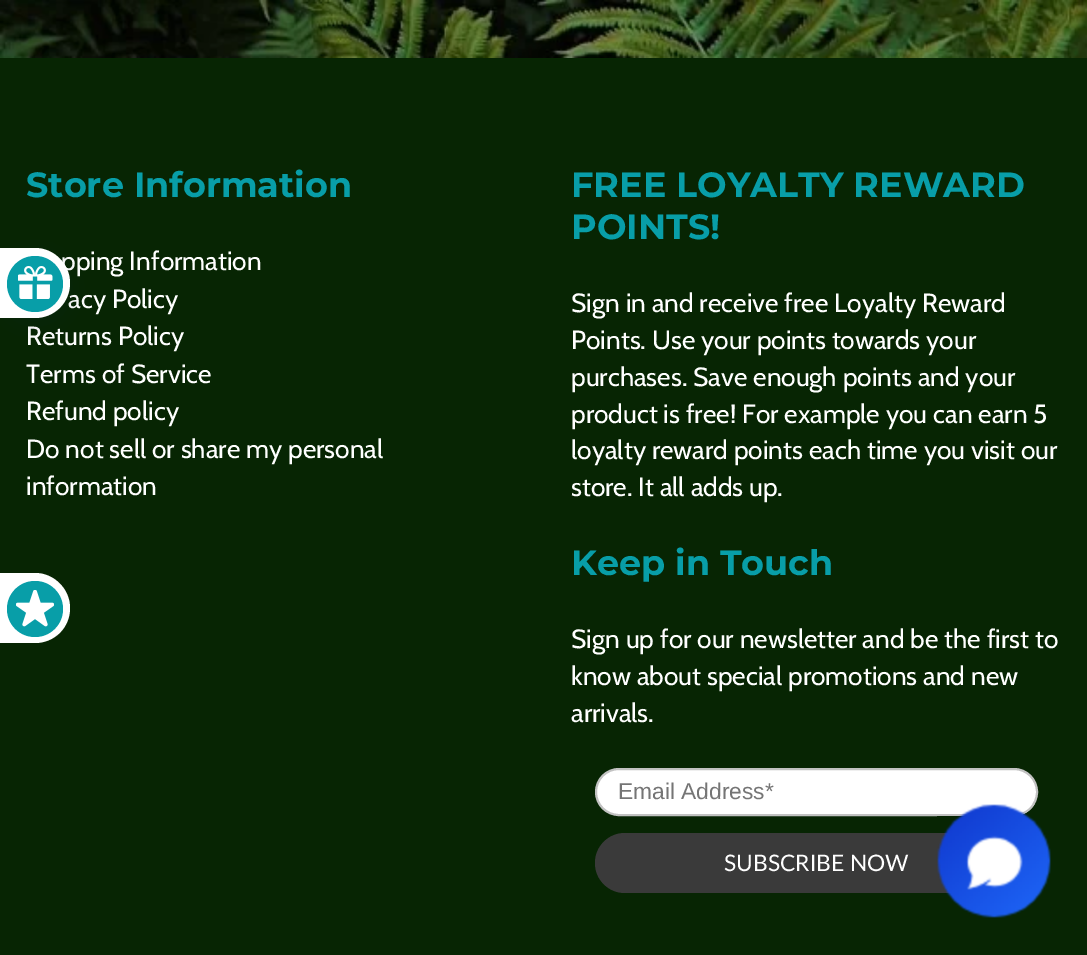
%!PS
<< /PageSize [1087 955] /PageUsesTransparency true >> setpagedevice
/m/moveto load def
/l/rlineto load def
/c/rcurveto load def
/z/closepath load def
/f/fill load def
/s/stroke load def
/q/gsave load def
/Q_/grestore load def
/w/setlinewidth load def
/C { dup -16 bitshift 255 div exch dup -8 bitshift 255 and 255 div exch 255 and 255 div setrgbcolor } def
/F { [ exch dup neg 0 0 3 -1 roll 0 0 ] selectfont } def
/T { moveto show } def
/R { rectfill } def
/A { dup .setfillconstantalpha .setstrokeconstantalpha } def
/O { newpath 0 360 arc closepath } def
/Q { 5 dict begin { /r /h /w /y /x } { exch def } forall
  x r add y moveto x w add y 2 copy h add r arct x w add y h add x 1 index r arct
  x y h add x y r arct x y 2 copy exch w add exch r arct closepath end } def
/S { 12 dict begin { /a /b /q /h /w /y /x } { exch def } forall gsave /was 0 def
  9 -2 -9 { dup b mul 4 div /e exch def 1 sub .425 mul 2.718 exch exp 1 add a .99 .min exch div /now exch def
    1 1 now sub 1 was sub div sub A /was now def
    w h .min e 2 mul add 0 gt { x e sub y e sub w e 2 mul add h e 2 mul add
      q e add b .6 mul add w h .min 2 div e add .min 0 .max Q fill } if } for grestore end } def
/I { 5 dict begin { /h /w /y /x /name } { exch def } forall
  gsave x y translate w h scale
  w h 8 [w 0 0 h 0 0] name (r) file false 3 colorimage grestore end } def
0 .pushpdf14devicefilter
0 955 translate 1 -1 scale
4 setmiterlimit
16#FFFFFF C
0 0 1087 955 R
(1.rgb) 0 0 1087 58 I
16#072503 C
0 58 1087 897 R
/Montserrat-Bold 35 F
16#089EA8 C
(Store Information) 26 197 T
/Cabin-Regular 26.25 F
16#FFFFFF C
(pping Information) 61 270 T
(acy Policy) 68 308 T
(Returns Policy) 26 345 T
(Terms of Service) 26 383 T
(Refund policy) 26 420 T
(Do not sell or share my personal) 26 458 T
(information) 26 495 T
/Montserrat-Bold 35 F
16#089EA8 C
(FREE LOYALTY REWARD) 571 197 T
(POINTS!) 571 239 T
/Cabin-Regular 26.25 F
16#FFFFFF C
(Sign in and receive free Loyalty Reward) 571 312 T
(Points. Use your points towards your) 571 349 T
(purchases. Save enough points and your) 571 386 T
(product is free! For example you can earn 5) 571 423 T
(loyalty reward points each time you visit our) 571 459 T
(store. It all adds up.) 571 496 T
/Montserrat-Bold 35 F
16#089EA8 C
(Keep in Touch) 571 575 T
/Cabin-Regular 26.25 F
16#FFFFFF C
(Sign up for our newsletter and be the first to) 571 648 T
(know about special promotions and new) 571 685 T
(arrivals.) 571 722 T
596 769 441 46 23 Q q f Q_
16#C2C2C2 C
2 w
s
/LiberationSans-Regular 22.75 F
16#757575 C
(Email Address*) 618 799 T
16#3A3A3A C
595 833 443 60 30 Q f
/Lato-Regular 22.75 F
16#FFFFFF C
(SUBSCRIBE NOW) 724 871 T
16#112233 C
0 254 70 70 35 12 .16 S
16#FFFFFF C
70 283 m 0 20 -16 35 -35 35 c -35 0 l 0 -70 l 35 0 l 19 0 35 16 35 35 c z f
16#089EA8 C
35 284 28 O f
(2.rgb) 18 266 35 33 I
16#FFFFFF C
70 608 m 0 20 -16 35 -35 35 c -35 0 l 0 -70 l 35 0 l 19 0 35 16 35 35 c z f
16#089EA8 C
35 609 28 O f
(3.rgb) 16 590 38 37 I
(4.rgb) 937 804 114 114 I
.poppdf14devicefilter showpage
